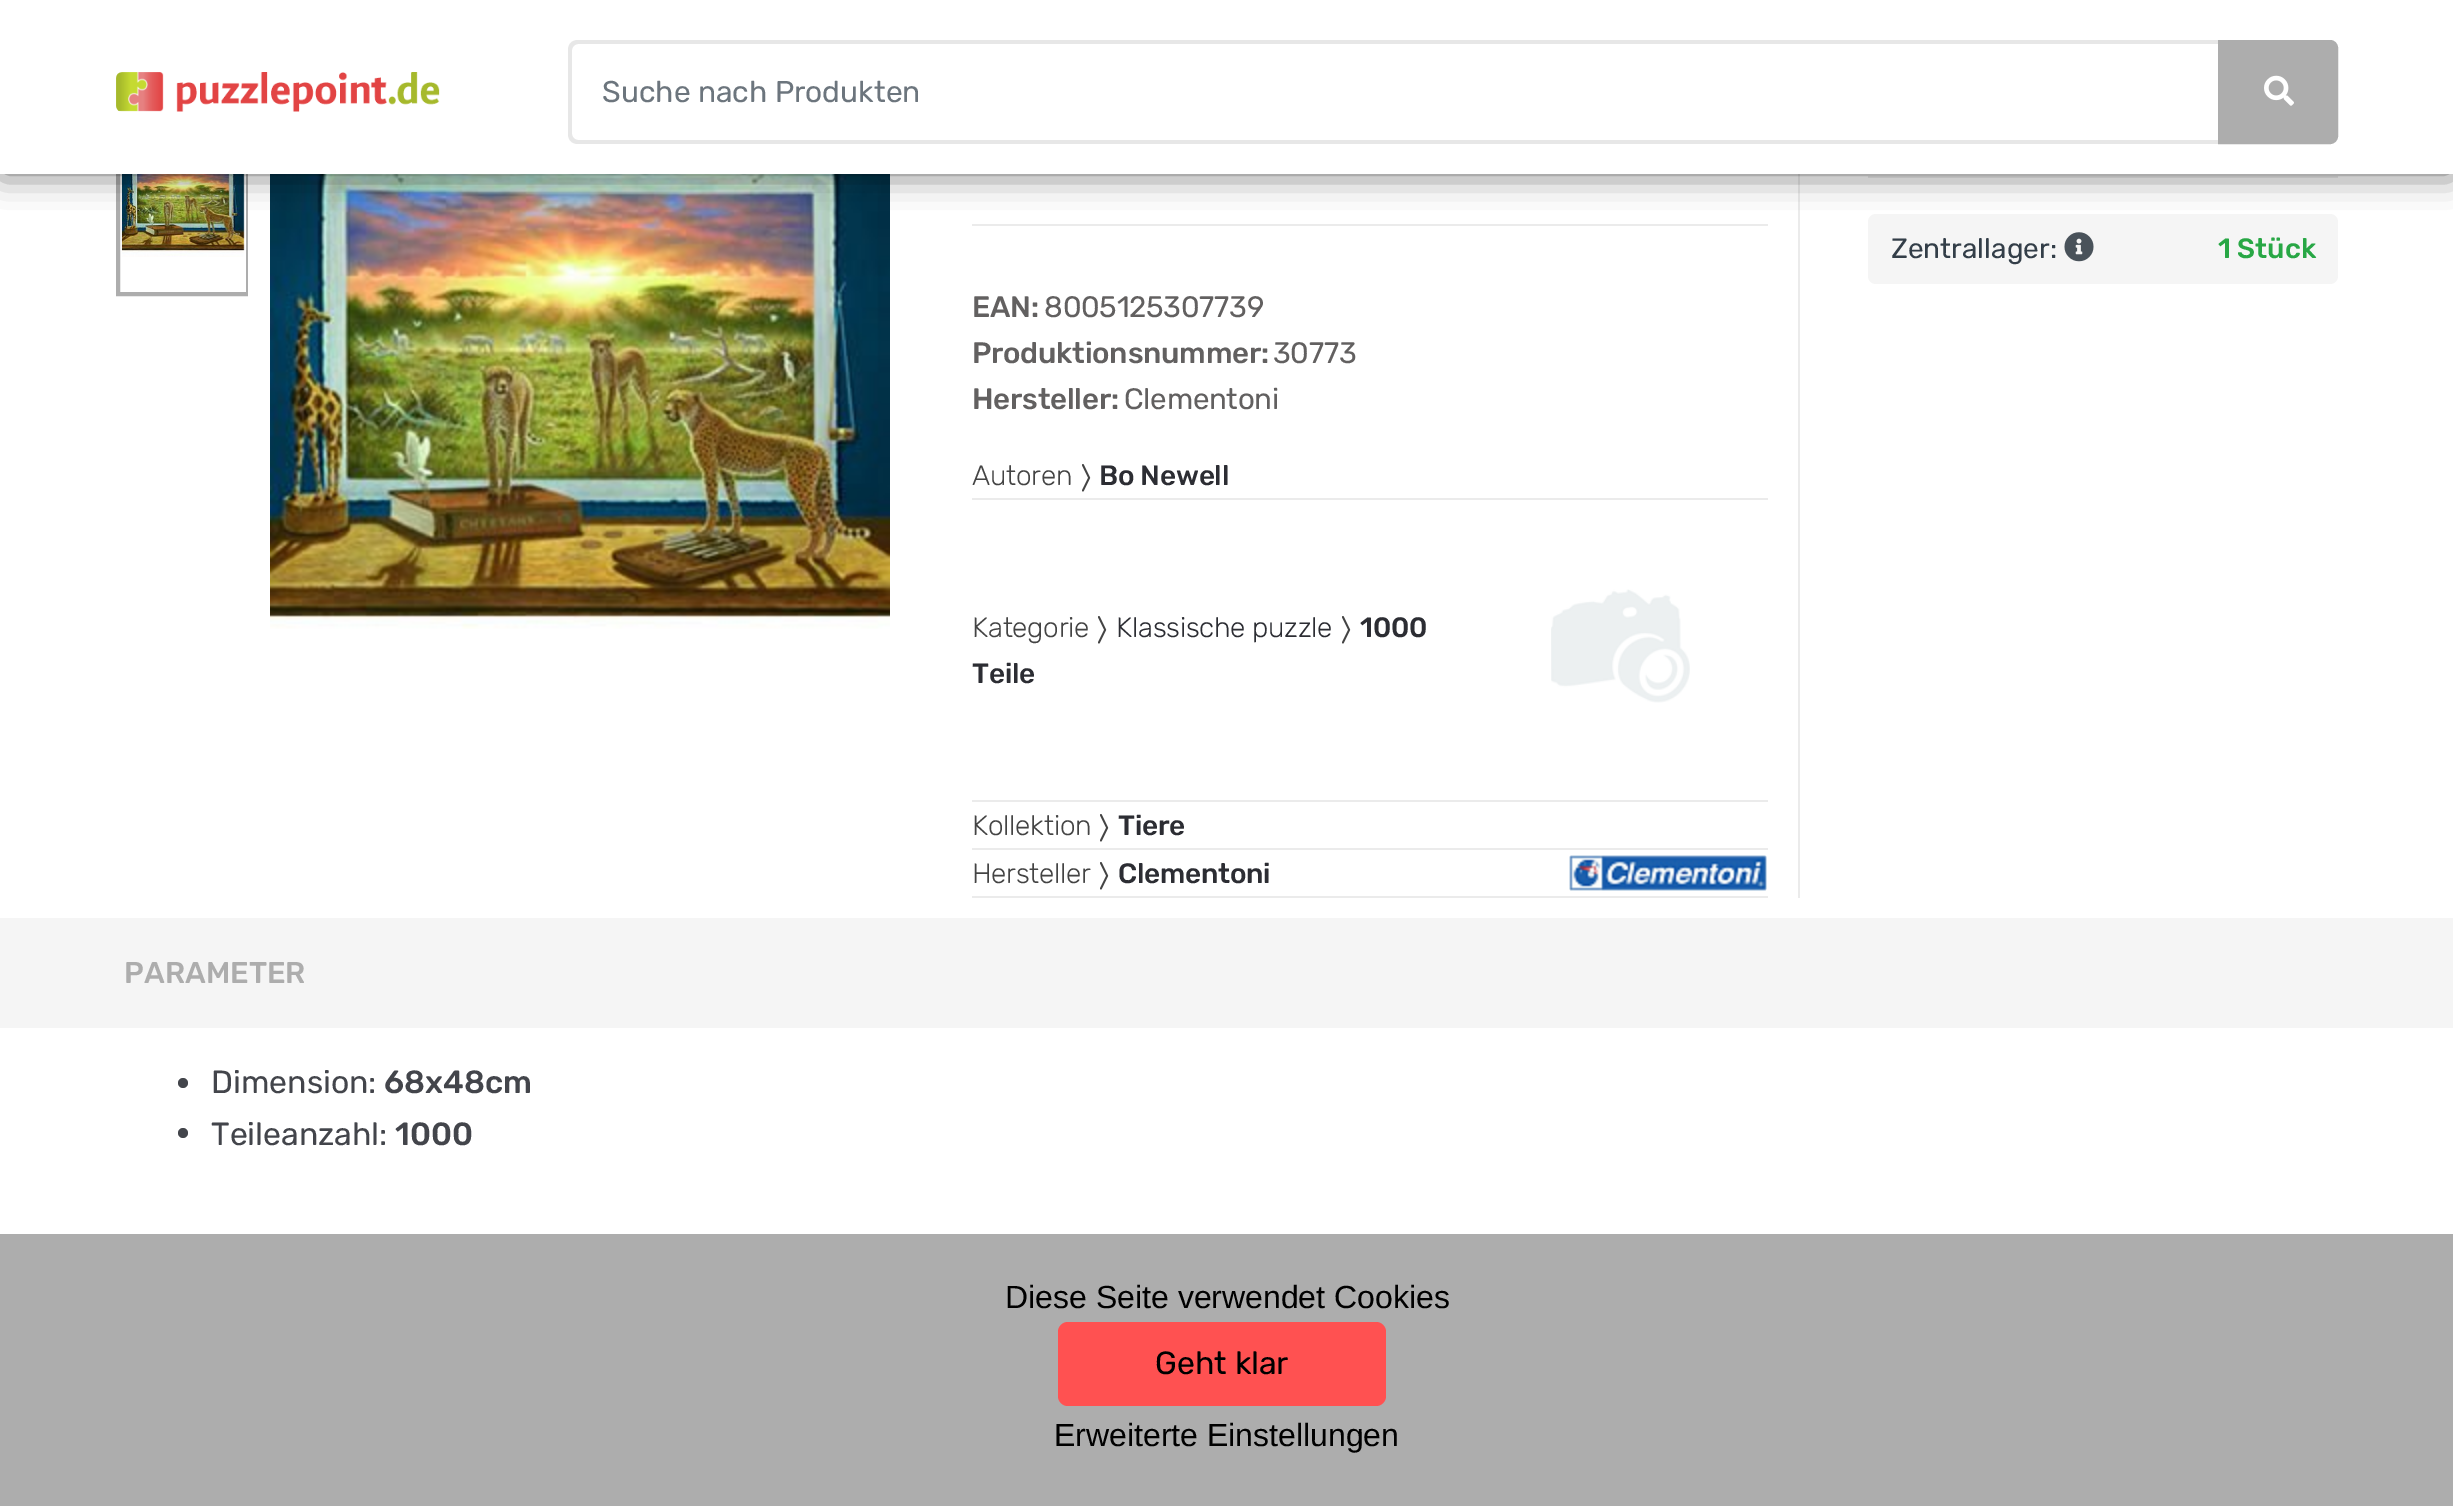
%!PS
<< /PageSize [2453 1506] /PageUsesTransparency true >> setpagedevice
/m/moveto load def
/l/rlineto load def
/c/rcurveto load def
/z/closepath load def
/f/fill load def
/s/stroke load def
/q/gsave load def
/Q_/grestore load def
/w/setlinewidth load def
/C { dup -16 bitshift 255 div exch dup -8 bitshift 255 and 255 div exch 255 and 255 div setrgbcolor } def
/F { [ exch dup neg 0 0 3 -1 roll 0 0 ] selectfont } def
/T { moveto show } def
/R { rectfill } def
/A { dup .setfillconstantalpha .setstrokeconstantalpha } def
/O { newpath 0 360 arc closepath } def
/Q { 5 dict begin { /r /h /w /y /x } { exch def } forall
  x r add y moveto x w add y 2 copy h add r arct x w add y h add x 1 index r arct
  x y h add x y r arct x y 2 copy exch w add exch r arct closepath end } def
/S { 12 dict begin { /a /b /q /h /w /y /x } { exch def } forall gsave /was 0 def
  9 -2 -9 { dup b mul 4 div /e exch def 1 sub .425 mul 2.718 exch exp 1 add a .99 .min exch div /now exch def
    1 1 now sub 1 was sub div sub A /was now def
    w h .min e 2 mul add 0 gt { x e sub y e sub w e 2 mul add h e 2 mul add
      q e add b .6 mul add w h .min 2 div e add .min 0 .max Q fill } if } for grestore end } def
/I { 5 dict begin { /h /w /y /x /name } { exch def } forall
  gsave x y translate w h scale
  w h 8 [w 0 0 h 0 0] name (r) file false 3 colorimage grestore end } def
0 .pushpdf14devicefilter
0 1506 translate 1 -1 scale
4 setmiterlimit
16#FFFFFF C
0 0 2453 1506 R
q
116 116 132 720 rectclip
16#ADADAD C
4 w
118 118 130 176 rectstroke
Q_
(3.rgb) 121 174 124 83 I
(4.rgb) 270 174 620 455 I
16#EBEBEB C
1798 174 2 724 R
1868 176 470 2 R
16#F5F5F5 C
1868 214 470 70 8 Q f
16#000000 C
2 2 2450 170 0 17 .66 S
16#FFFFFF C
0 0 2453 174 R
(1.rgb) 116 72 324 40 I
16#E7E7E7 C
578 40 m 1642 0 l 0 104 l -1642 0 l -6 0 -10 -4 -10 -10 c 0 -84 l 0 -6 4 -10 10 -10 c z 578 44 m 1642 0 l 0 96 l -1642 0 l -3 0 -6 -3 -6 -6 c 0 -84 l 0 -3 3 -6 6 -6 c z eofill
/Rubik-Regular 30 F
16#6C757D C
(Suche nach Produkten) 602 102 T
16#ADADAD C
2219 41 m 111 0 l 4 0 7 3 7 7 c 0 88 l 0 4 -3 7 -7 7 c -111 0 l z q f Q_
2 w
s
(2.rgb) 2264 75 30 31 I
/Rubik-Regular 28 F
16#333E48 C
(Zentrallager:) 1891 258 T
(5.rgb) 2064 232 30 30 I
/Rubik-Medium 28 F
16#28A745 C
(1 Stück) 2218 258 T
16#EBEBEB C
972 224 796 2 R
/Rubik-Medium 29.5 F
16#626060 C
972 317 m -.25 0 (EAN:) ashow
/Rubik-Regular 29.5 F
1044 317 m -.25 0 (8005125307739) ashow
/Rubik-Medium 29.5 F
972 363 m -.25 0 (Produktionsnummer:) ashow
/Rubik-Regular 29.5 F
1273 363 m -.25 0 (30773) ashow
/Rubik-Medium 29.5 F
972 409 m -.25 0 (Hersteller:) ashow
/Rubik-Regular 29.5 F
1124 409 m -.25 0 (Clementoni) ashow
16#EBEBEB C
972 498 796 2 R
/Rubik-Light 28 F
16#444444 C
972 485 m -.25 0 (Autoren) ashow
(6.rgb) 1082 464 9 28 I
/Rubik-Medium 28 F
16#2C2D33 C
1099 485 m -.25 0 (Bo Newell) ashow
16#EBEBEB C
972 800 796 2 R
/Rubik-Light 28 F
16#444444 C
972 637 m -.25 0 (Kategorie) ashow
(6.rgb) 1098 616 9 28 I
16#2C2D33 C
1116 637 m -.25 0 (Klassische puzzle) ashow
(6.rgb) 1342 616 9 28 I
/Rubik-Medium 28 F
1360 637 m -.25 0 (1000) ashow
972 683 m -.25 0 (Teile) ashow
(7.rgb) 1551 589 139 114 I
16#EBEBEB C
972 848 796 2 R
/Rubik-Light 28 F
16#444444 C
972 835 m -.25 0 (Kollektion) ashow
(6.rgb) 1100 814 9 28 I
/Rubik-Medium 28 F
16#2C2D33 C
1118 835 m -.25 0 (Tiere) ashow
16#EBEBEB C
972 896 796 2 R
/Rubik-Light 28 F
16#444444 C
972 883 m -.25 0 (Hersteller) ashow
(6.rgb) 1100 862 9 28 I
/Rubik-Medium 28 F
16#2C2D33 C
1118 883 m -.25 0 (Clementoni) ashow
(8.rgb) 1569 855 198 36 I
16#F5F5F5 C
0 918 2453 110 R
/Rubik-Medium 30 F
16#ADADAD C
(PARAMETER) 124 983 T
16#43454B C
183 1083 5 O f
/Rubik-Regular 32 F
(Dimension:) 211 1093 T
/Rubik-Medium 32 F
(68x48cm) 384 1093 T
183 1133 5 O f
/Rubik-Regular 32 F
(Teileanzahl:) 211 1145 T
/Rubik-Medium 32 F
(1000) 395 1145 T
16#ADADAD C
0 1234 2453 272 R
/LiberationSans-Regular 32 F
16#000000 C
(Diese Seite verwendet Cookies) 1005 1308 T
16#FF5151 C
1058 1322 328 84 10 Q f
/Rubik-Regular 32 F
16#000000 C
(Geht klar) 1155 1374 T
/LiberationSans-Regular 32 F
(Erweiterte Einstellungen) 1054 1446 T
.poppdf14devicefilter showpage
